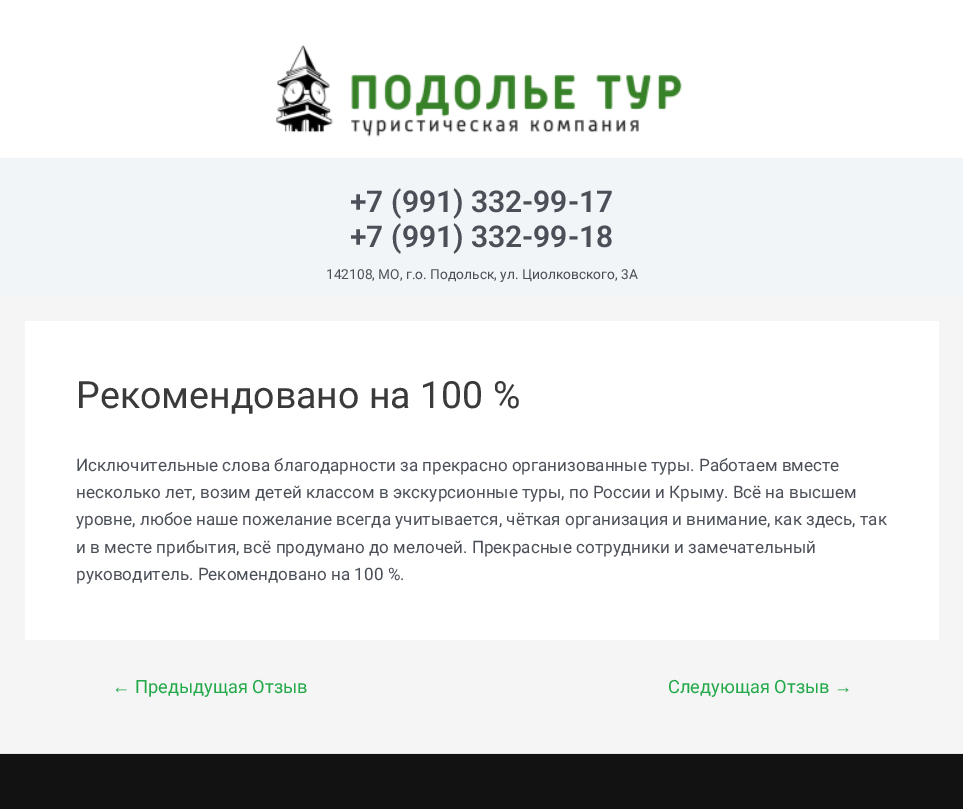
%!PS
<< /PageSize [963 809] >> setpagedevice
/C { dup -16 bitshift 255 div exch dup -8 bitshift 255 and 255 div exch 255 and 255 div setrgbcolor } def
/F { [ exch dup neg 0 0 3 -1 roll 0 0 ] selectfont } def
/T { moveto show } def
/R { rectfill } def
/I { 5 dict begin { /h /w /y /x /name } { exch def } forall
  gsave x y translate w h scale
  w h 8 [w 0 0 h 0 0] name (r) file false 3 colorimage grestore end } def
0 809 translate 1 -1 scale
4 setmiterlimit
16#F5F5F5 C
0 0 963 809 R
16#FFFFFF C
0 0 963 158 R
(1.rgb) 276 45 406 92 I
16#F2F5F7 C
0 158 963 138 R
/Roboto-SemiBold 30 F
16#4B4F58 C
(+7 \(991\) 332-99-17) 350 212 T
(+7 \(991\) 332-99-18) 350 247 T
/Roboto-Regular 13.75 F
(142108, МО, г.о. Подольск, ул. Циолковского, 3А) 326 279 T
16#FFFFFF C
25 321 914 319 R
/Roboto-Regular 37.5 F
16#3A3A3A C
(Рекомендовано на 100 %) 76 408 T
/Roboto-Regular 17.1 F
16#4B4F58 C
(Исключительные слова благодарности за прекрасно организованные туры. Работаем вместе) 76 471 T
(несколько лет, возим детей классом в экскурсионные туры, по России и Крыму. Всё на высшем) 76 498 T
(уровне, любое наше пожелание всегда учитывается, чёткая организация и внимание, как здесь, так) 76 525 T
(и в месте прибытия, всё продумано до мелочей. Прекрасные сотрудники и замечательный) 76 553 T
(руководитель. Рекомендовано на 100 %.) 76 580 T
/LiberationSans-Regular 18.25 F
16#23A949 C
(←) 112 693 T
/Roboto-Regular 18.25 F
(Предыдущая Отзыв) 135 693 T
(Следующая Отзыв) 668 693 T
/LiberationSans-Regular 18.25 F
(→) 834 693 T
16#121212 C
0 754 963 55 R
16#E6E6E6 C
0 753 963 1 R
showpage
